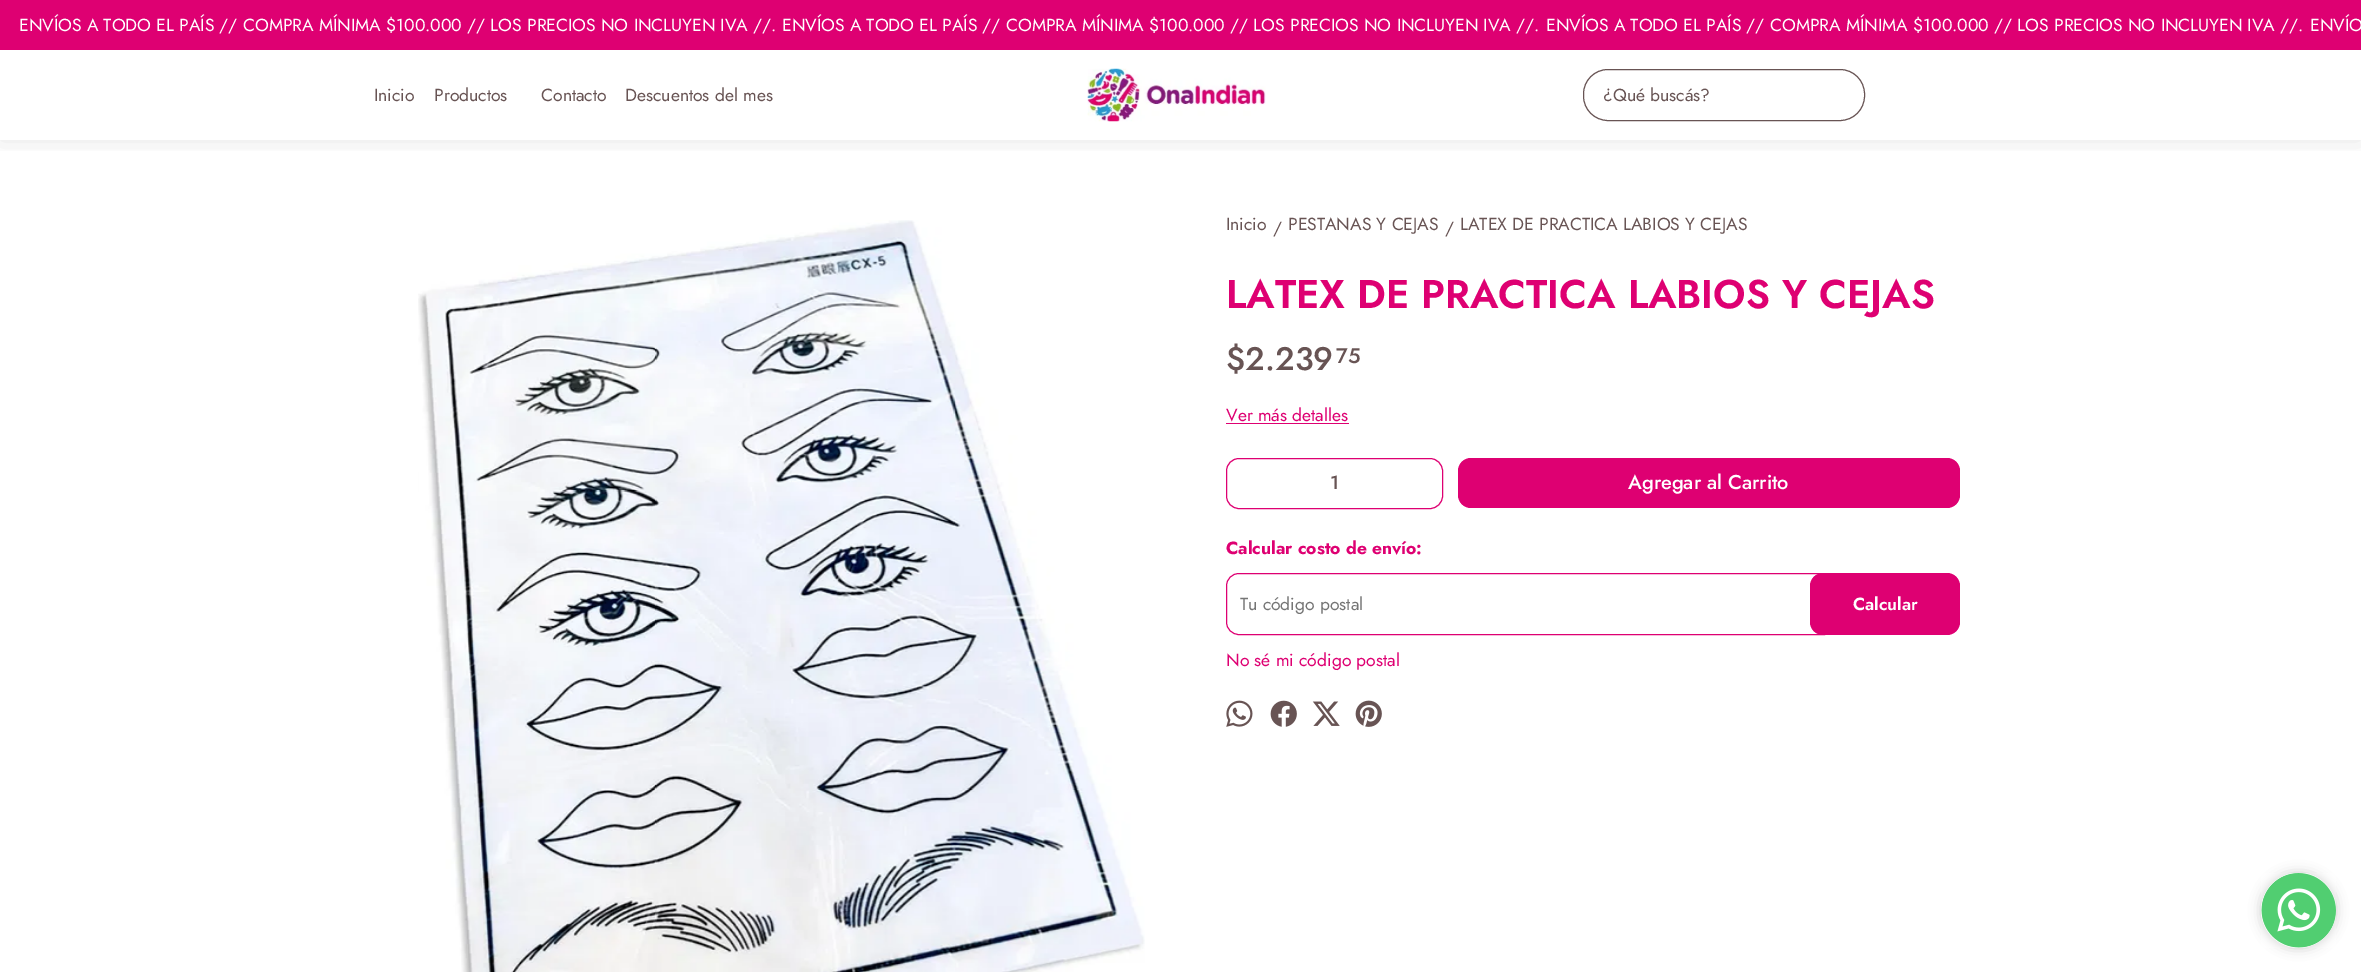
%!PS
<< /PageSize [2361 972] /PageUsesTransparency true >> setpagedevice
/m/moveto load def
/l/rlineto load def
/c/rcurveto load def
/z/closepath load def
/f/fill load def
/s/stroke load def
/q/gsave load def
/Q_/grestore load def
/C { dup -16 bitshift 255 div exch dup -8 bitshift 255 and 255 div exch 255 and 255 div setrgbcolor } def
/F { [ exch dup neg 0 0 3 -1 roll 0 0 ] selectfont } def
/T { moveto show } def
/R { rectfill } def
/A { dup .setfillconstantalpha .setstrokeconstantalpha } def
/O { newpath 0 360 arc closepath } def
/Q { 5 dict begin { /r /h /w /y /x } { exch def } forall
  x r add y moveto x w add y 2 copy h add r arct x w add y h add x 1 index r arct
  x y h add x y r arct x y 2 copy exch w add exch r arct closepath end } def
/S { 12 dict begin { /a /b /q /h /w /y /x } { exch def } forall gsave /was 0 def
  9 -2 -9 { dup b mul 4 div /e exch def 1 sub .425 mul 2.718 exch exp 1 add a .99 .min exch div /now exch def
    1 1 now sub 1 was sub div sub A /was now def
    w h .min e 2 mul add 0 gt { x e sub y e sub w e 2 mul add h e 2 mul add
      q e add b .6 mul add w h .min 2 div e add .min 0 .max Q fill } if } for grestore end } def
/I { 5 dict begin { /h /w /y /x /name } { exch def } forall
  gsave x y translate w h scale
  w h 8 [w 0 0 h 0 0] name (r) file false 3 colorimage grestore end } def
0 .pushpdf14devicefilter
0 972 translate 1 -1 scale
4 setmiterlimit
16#FFFFFF C
0 0 2361 972 R
q
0 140 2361 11 rectclip
16#000000 C
0 0 2361 140 0 12.5 .1 S
Q_
16#DE0072 C
0 0 2361 50 R
/Jost-Regular 17.5 F
16#FFFFFF C
(ENVÍOS A TODO EL PAÍS // COMPRA MÍNIMA $100.000 // LOS PRECIOS NO INCLUYEN IVA //.) 19 31 T
(ENVÍOS A TODO EL PAÍS // COMPRA MÍNIMA $100.000 // LOS PRECIOS NO INCLUYEN IVA //.) 782 31 T
(ENVÍOS A TODO EL PAÍS // COMPRA MÍNIMA $100.000 // LOS PRECIOS NO INCLUYEN IVA //.) 1546 31 T
(ENVÍO) 2310 31 T
16#685454 C
(Inicio) 374 101 T
(Productos) 434 101 T
(Contacto) 541 101 T
(Descuentos del mes) 625 101 T
(1.rgb) 1087 68 179 54 I
1583.5 69.5 281 51 24.5 Q s
(¿Qué buscás?) 1603 101 T
(2.rgb) 418 220 727 752 I
(Inicio) 1226 230 T
(/) 1273 234 T
(PESTANAS Y CEJAS) 1288 230 T
(/) 1445 234 T
(LATEX DE PRACTICA LABIOS Y CEJAS) 1460 230 T
/Jost-SemiBold 40 F
16#DE0072 C
(LATEX DE PRACTICA LABIOS Y CEJAS) 1226 308 T
/Jost-Medium 32.5 F
16#685454 C
($2.239) 1226 370 T
/Jost-Medium 21 F
(75) 1336 363 T
/Jost-Regular 17.5 F
16#DE0072 C
(Ver más detalles) 1226 421 T
1226 423 123 1 R
1226.5 458.5 216 50 12.5 Q s
/Jost-Medium 19 F
16#685454 C
(1) 1330 489 T
16#DE0072 C
1458 458 502 50 13 Q f
/Jost-Medium 20 F
16#FFFFFF C
(Agregar al Carrito) 1628 489 T
/Jost-Bold 17.5 F
16#DE0072 C
(Calcular costo de envío:) 1226 554 T
1239 573.5 m 585.5 0 l 0 61 l -585.5 0 l -7 0 -12.5 -5.5 -12.5 -12.5 c 0 -36 l 0 -7 5.5 -12.5 12.5 -12.5 c z s
/Jost-Regular 17.5 F
16#757575 C
(Tu código postal) 1240 610 T
16#DE0072 C
1810 573 150 62 13 Q f
/Jost-SemiBold 17.5 F
16#FFFFFF C
(Calcular) 1853 610 T
/Jost-Regular 17.5 F
16#DE0072 C
(No sé mi código postal) 1226 666 T
(3.rgb) 1226 700 27 27 I
(4.rgb) 1270 700 27 27 I
(5.rgb) 1312 701 28 25 I
(6.rgb) 1355 700 27 27 I
16#000000 C
2261 873 75 75 37.5 6 .2 S
16#FFFFFF C
2298.5 910.5 37.5 O f
(7.rgb) 2261 873 75 75 I
.poppdf14devicefilter showpage
